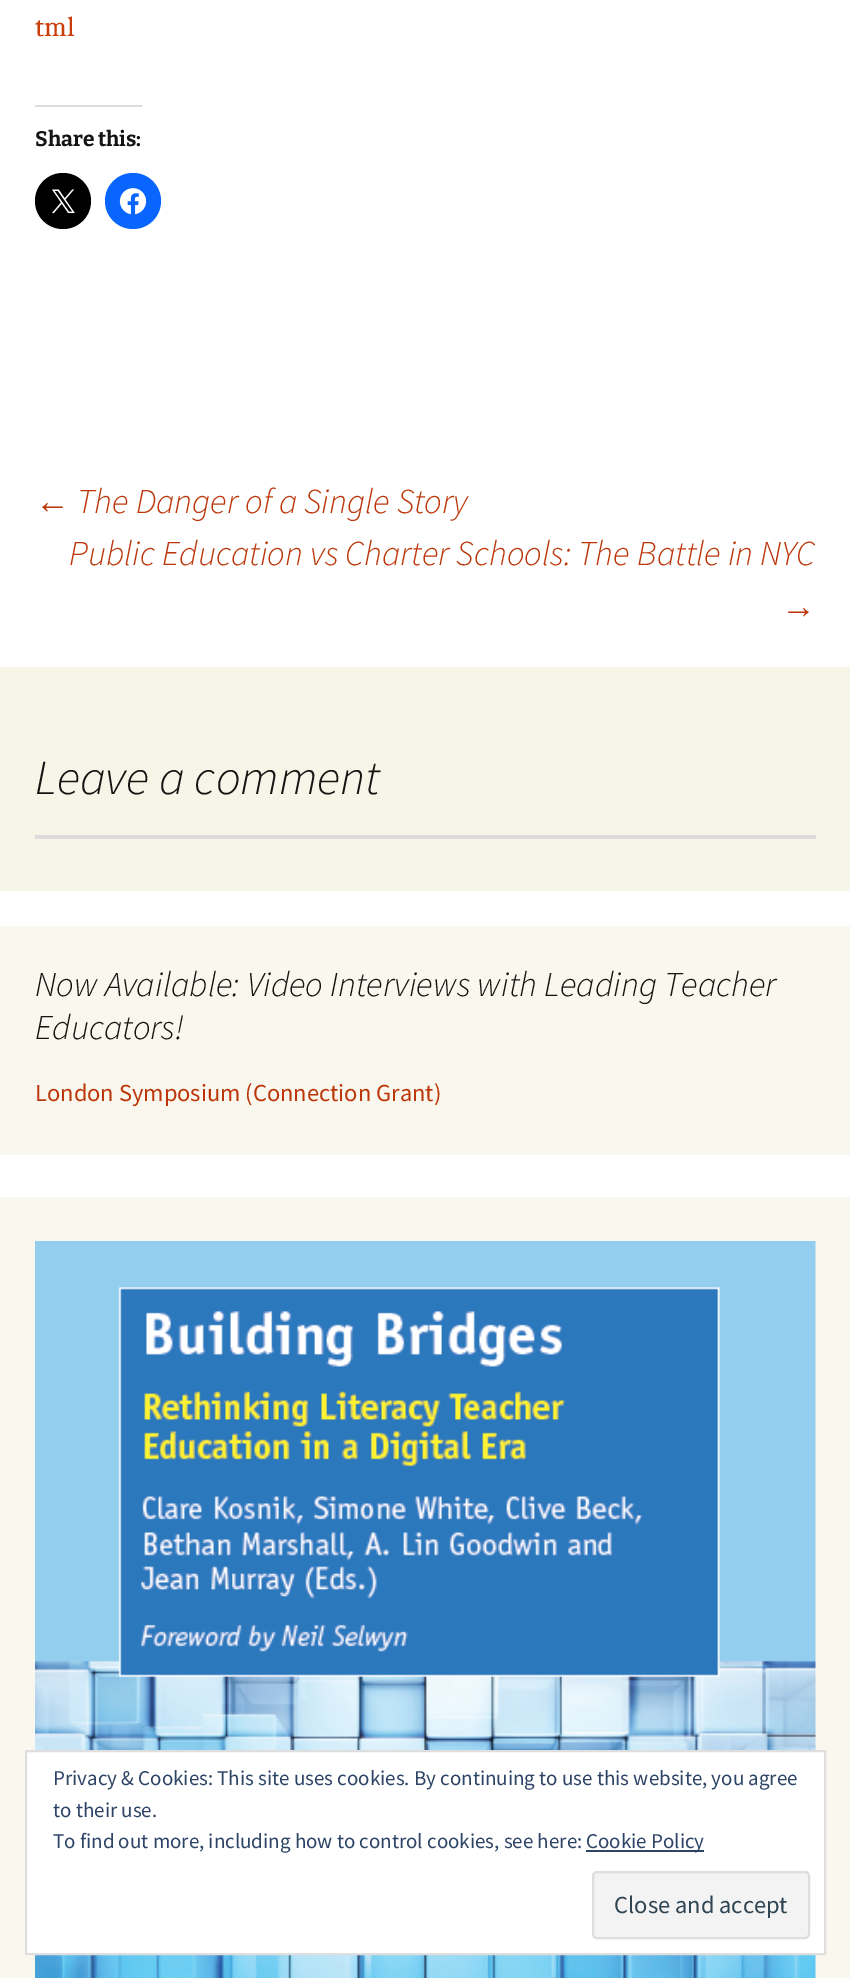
%!PS
<< /PageSize [850 1978] >> setpagedevice
/m/moveto load def
/l/rlineto load def
/z/closepath load def
/f/fill load def
/s/stroke load def
/q/gsave load def
/Q_/grestore load def
/w/setlinewidth load def
/C { dup -16 bitshift 255 div exch dup -8 bitshift 255 and 255 div exch 255 and 255 div setrgbcolor } def
/F { [ exch dup neg 0 0 3 -1 roll 0 0 ] selectfont } def
/T { moveto show } def
/R { rectfill } def
/O { newpath 0 360 arc closepath } def
/Q { 5 dict begin { /r /h /w /y /x } { exch def } forall
  x r add y moveto x w add y 2 copy h add r arct x w add y h add x 1 index r arct
  x y h add x y r arct x y 2 copy exch w add exch r arct closepath end } def
/I { 5 dict begin { /h /w /y /x /name } { exch def } forall
  gsave x y translate w h scale
  w h 8 [w 0 0 h 0 0] name (r) file false 3 colorimage grestore end } def
0 1978 translate 1 -1 scale
4 setmiterlimit
16#FFFFFF C
0 0 850 1978 R
/Caladea-Regular 28 F
16#CA3C08 C
(tml) 35 36 T
16#DCDCDE C
35 105 107 2 R
/Bitter-Bold 21 F
16#141412 C
(Share this:) 35 146 T
16#000000 C
63 201 28 O f
(1.rgb) 52 189 23 25 I
16#0866FF C
133 201 28 O f
(2.rgb) 119 188 28 27 I
/LiberationSans-Italic 35 F
16#BC360A C
(←) 35 513 T
/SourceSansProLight-LightItalic 35 F
(The Danger of a Single Story) 77 513 T
(Public Education vs Charter Schools: The Battle in NYC) 69 565 T
/LiberationSans-Italic 35 F
(→) 781 618 T
16#F7F5E7 C
0 667 850 224 R
/SourceSansProLight-LightItalic 49 F
16#141412 C
(Leave a comment) 35 794 T
16#DCDCDE C
35 835 781 4 R
16#FAF8EE C
0 926 850 229 R
/SourceSansProLight-LightItalic 35 F
16#141412 C
(Now Available: Video Interviews with Leading Teacher) 35 996 T
(Educators!) 35 1039 T
/SourceSansPro-Regular 24.5 F
16#BC360A C
(London Symposium \(Connection Grant\)) 35 1101 T
16#FAF8EE C
0 1197 850 781 R
(3.rgb) 35 1241 781 737 I
16#FFFFFF C
26 1751 m 799 0 l 0 203 l -799 0 l z q f Q_
16#DEDEDE C
2 w
s
/SourceSansPro-Regular 21 F
16#2E4467 C
(Privacy & Cookies: This site uses cookies. By continuing to use this website, you agree) 53 1785 T
(to their use.) 53 1817 T
(To find out more, including how to control cookies, see here:) 53 1848 T
586 1850 118 2 R
(Cookie Policy) 586 1848 T
16#F3F3F3 C
593 1872 216 66 4 Q q f Q_
16#DEDEDE C
s
/SourceSansPro-Regular 24.5 F
16#2E4453 C
(Close and accept) 614 1913 T
showpage
